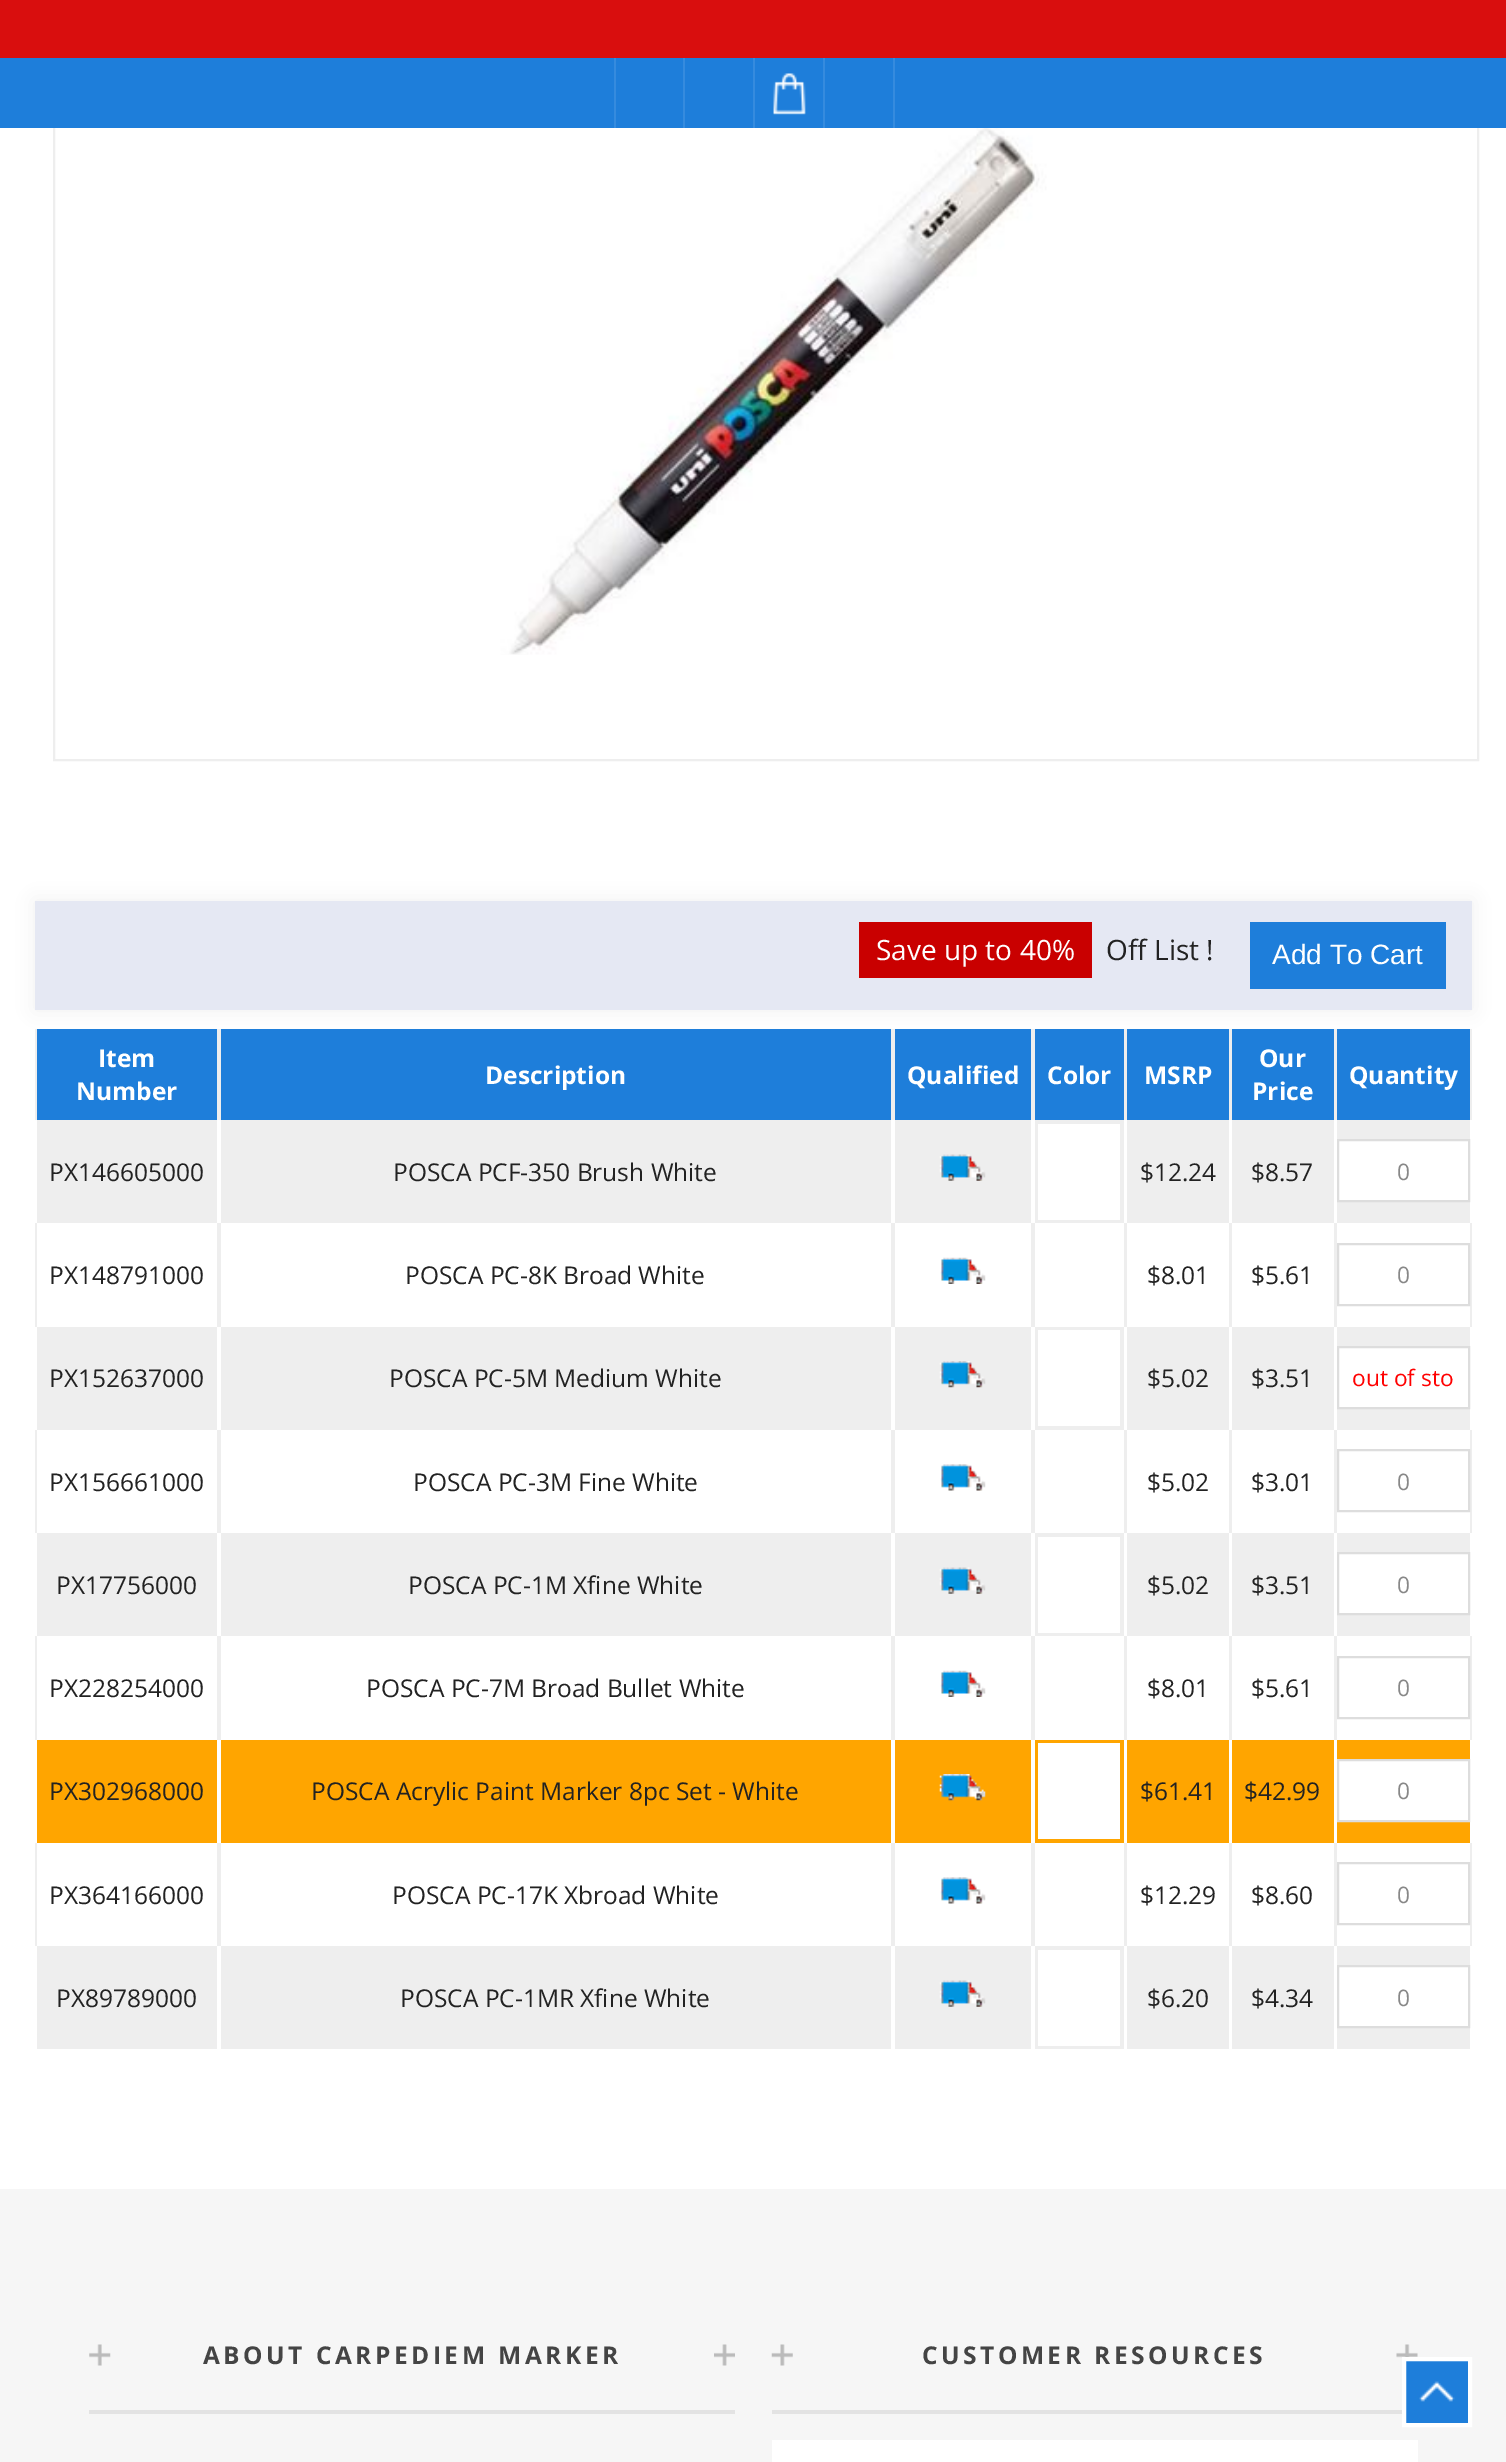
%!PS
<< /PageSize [1506 2462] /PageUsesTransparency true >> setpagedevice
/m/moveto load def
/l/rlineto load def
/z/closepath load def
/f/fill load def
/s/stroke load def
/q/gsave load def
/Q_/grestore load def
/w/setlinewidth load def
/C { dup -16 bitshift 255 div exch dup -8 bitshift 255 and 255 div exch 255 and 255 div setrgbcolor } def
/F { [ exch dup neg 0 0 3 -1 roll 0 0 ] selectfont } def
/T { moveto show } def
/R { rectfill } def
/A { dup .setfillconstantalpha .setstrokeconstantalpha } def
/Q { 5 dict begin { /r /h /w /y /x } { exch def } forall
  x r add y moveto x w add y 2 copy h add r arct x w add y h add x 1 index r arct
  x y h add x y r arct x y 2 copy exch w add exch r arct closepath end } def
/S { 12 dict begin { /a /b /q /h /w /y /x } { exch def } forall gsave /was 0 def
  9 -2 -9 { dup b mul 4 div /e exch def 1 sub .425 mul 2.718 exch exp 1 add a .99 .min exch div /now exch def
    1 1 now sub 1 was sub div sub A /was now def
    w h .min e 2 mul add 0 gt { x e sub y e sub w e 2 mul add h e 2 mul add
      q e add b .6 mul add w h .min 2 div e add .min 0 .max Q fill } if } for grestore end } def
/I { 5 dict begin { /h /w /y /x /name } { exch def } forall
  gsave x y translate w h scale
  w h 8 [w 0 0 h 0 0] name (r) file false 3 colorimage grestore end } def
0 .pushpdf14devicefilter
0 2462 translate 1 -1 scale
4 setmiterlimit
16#FFFFFF C
0 0 1506 2462 R
16#EEEEEE C
2 w
54 52 1424 708 rectstroke
16#D90E0E C
0 0 1506 58 R
16#1E7EDA C
0 58 1506 70 R
16#358BDE C
683 58 2 70 R
614 58 2 70 R
753 58 2 70 R
(1.rgb) 773 73 33 42 I
823 58 2 70 R
893 58 2 70 R
(2.rgb) 416 128 701 527 I
16#EEEEEE C
35 901 1437 109 0 9 1 S
16#E5E8F3 C
35 901 1437 109 R
16#C90000 C
859 922 233 56 R
/OpenSans-Regular 28 F
16#FFFFFF C
(Save up to 40%) 876 960 T
16#222222 C
(Off List !) 1106 960 T
16#1E7EDA C
1250 922 196 67 R
/LiberationSans-Regular 28 F
16#FFFFFF C
(Add To Cart) 1272 964 T
16#1E7EDA C
37 1029 1433 91 R
16#EEEEEE C
217 1029 4 91 R
35 1029 2 91 R
/OpenSans-Bold 24.5 F
16#FFFFFF C
(Item) 98 1067 T
(Number) 76 1100 T
16#EEEEEE C
891 1029 4 91 R
16#FFFFFF C
(Description) 485 1084 T
16#EEEEEE C
1031 1029 4 91 R
16#FFFFFF C
(Qualified) 907 1084 T
16#EEEEEE C
1124 1029 3 91 R
16#FFFFFF C
(Color) 1047 1084 T
16#EEEEEE C
1229 1029 3 91 R
16#FFFFFF C
(MSRP) 1144 1084 T
16#EEEEEE C
1334 1029 3 91 R
16#FFFFFF C
(Our) 1259 1067 T
(Price) 1252 1100 T
16#EEEEEE C
1470 1029 2 91 R
16#FFFFFF C
(Quantity) 1349 1084 T
16#EEEEEE C
37 1120 1433 103 R
16#FFFFFF C
217 1120 4 103 R
/OpenSans-Regular 24.5 F
16#222222 C
(PX146605000) 49 1181 T
16#FFFFFF C
891 1120 4 103 R
16#222222 C
(POSCA PCF-350 Brush White) 393 1181 T
16#FFFFFF C
1031 1120 4 103 R
(3.rgb) 939 1154 47 27 I
1124 1120 3 103 R
1038 1124 82 96 R
1229 1120 3 103 R
16#222222 C
($12.24) 1140 1181 T
16#FFFFFF C
1334 1120 3 103 R
16#222222 C
($8.57) 1251 1181 T
16#FFFFFF C
1338 1140 m 131 0 l 0 61 l -131 0 l z q f Q_
16#DDDDDD C
s
/OpenSans-Regular 22.75 F
16#888888 C
(0) 1397 1180 T
16#EEEEEE C
217 1223 4 104 R
35 1223 2 104 R
/OpenSans-Regular 24.5 F
16#222222 C
(PX148791000) 49 1284 T
16#EEEEEE C
891 1223 4 104 R
16#222222 C
(POSCA PC-8K Broad White) 405 1284 T
16#EEEEEE C
1031 1223 4 104 R
(4.rgb) 940 1257 46 27 I
1124 1223 3 104 R
1229 1223 3 104 R
16#222222 C
($8.01) 1147 1284 T
16#EEEEEE C
1334 1223 3 104 R
16#222222 C
($5.61) 1251 1284 T
16#EEEEEE C
1470 1223 2 104 R
16#DDDDDD C
1338 1244 131 61 rectstroke
/OpenSans-Regular 22.75 F
16#888888 C
(0) 1397 1283 T
16#EEEEEE C
37 1327 1433 103 R
16#FFFFFF C
217 1327 4 103 R
/OpenSans-Regular 24.5 F
16#222222 C
(PX152637000) 49 1387 T
16#FFFFFF C
891 1327 4 103 R
16#222222 C
(POSCA PC-5M Medium White) 389 1387 T
16#FFFFFF C
1031 1327 4 103 R
(5.rgb) 939 1361 47 27 I
1124 1327 3 103 R
1038 1330 82 96 R
1229 1327 3 103 R
16#222222 C
($5.02) 1147 1387 T
16#FFFFFF C
1334 1327 3 103 R
16#222222 C
($3.51) 1251 1387 T
16#FFFFFF C
1338 1347 m 131 0 l 0 61 l -131 0 l z q f Q_
16#DDDDDD C
s
/OpenSans-Regular 22.75 F
16#FF0000 C
(out of sto) 1352 1386 T
16#EEEEEE C
217 1430 4 103 R
35 1430 2 103 R
/OpenSans-Regular 24.5 F
16#222222 C
(PX156661000) 49 1491 T
16#EEEEEE C
891 1430 4 103 R
16#222222 C
(POSCA PC-3M Fine White) 413 1491 T
16#EEEEEE C
1031 1430 4 103 R
(6.rgb) 940 1464 46 27 I
1124 1430 3 103 R
1229 1430 3 103 R
16#222222 C
($5.02) 1147 1491 T
16#EEEEEE C
1334 1430 3 103 R
16#222222 C
($3.01) 1251 1491 T
16#EEEEEE C
1470 1430 2 103 R
16#DDDDDD C
1338 1450 131 61 rectstroke
/OpenSans-Regular 22.75 F
16#888888 C
(0) 1397 1490 T
16#EEEEEE C
37 1533 1433 103 R
16#FFFFFF C
217 1533 4 103 R
/OpenSans-Regular 24.5 F
16#222222 C
(PX17756000) 56 1594 T
16#FFFFFF C
891 1533 4 103 R
16#222222 C
(POSCA PC-1M Xfine White) 408 1594 T
16#FFFFFF C
1031 1533 4 103 R
(3.rgb) 939 1567 47 27 I
1124 1533 3 103 R
1038 1537 82 96 R
1229 1533 3 103 R
16#222222 C
($5.02) 1147 1594 T
16#FFFFFF C
1334 1533 3 103 R
16#222222 C
($3.51) 1251 1594 T
16#FFFFFF C
1338 1553 m 131 0 l 0 61 l -131 0 l z q f Q_
16#DDDDDD C
s
/OpenSans-Regular 22.75 F
16#888888 C
(0) 1397 1593 T
16#EEEEEE C
217 1636 4 104 R
35 1636 2 104 R
/OpenSans-Regular 24.5 F
16#222222 C
(PX228254000) 49 1697 T
16#EEEEEE C
891 1636 4 104 R
16#222222 C
(POSCA PC-7M Broad Bullet White) 366 1697 T
16#EEEEEE C
1031 1636 4 104 R
(4.rgb) 940 1670 46 27 I
1124 1636 3 104 R
1229 1636 3 104 R
16#222222 C
($8.01) 1147 1697 T
16#EEEEEE C
1334 1636 3 104 R
16#222222 C
($5.61) 1251 1697 T
16#EEEEEE C
1470 1636 2 104 R
16#DDDDDD C
1338 1657 131 61 rectstroke
/OpenSans-Regular 22.75 F
16#888888 C
(0) 1397 1696 T
16#FFA500 C
37 1740 1433 103 R
16#FFFFFF C
217 1740 4 103 R
/OpenSans-Regular 24.5 F
16#222222 C
(PX302968000) 49 1800 T
16#FFFFFF C
891 1740 4 103 R
16#222222 C
(POSCA Acrylic Paint Marker 8pc Set - White) 311 1800 T
16#FFFFFF C
1031 1740 4 103 R
(7.rgb) 939 1774 47 27 I
1124 1740 3 103 R
1038 1743 82 96 R
1229 1740 3 103 R
16#222222 C
($61.41) 1140 1800 T
16#FFFFFF C
1334 1740 3 103 R
16#222222 C
($42.99) 1244 1800 T
16#FFFFFF C
1338 1760 m 131 0 l 0 61 l -131 0 l z q f Q_
16#DDDDDD C
s
/OpenSans-Regular 22.75 F
16#888888 C
(0) 1397 1799 T
16#EEEEEE C
217 1843 4 103 R
35 1843 2 103 R
/OpenSans-Regular 24.5 F
16#222222 C
(PX364166000) 49 1904 T
16#EEEEEE C
891 1843 4 103 R
16#222222 C
(POSCA PC-17K Xbroad White) 392 1904 T
16#EEEEEE C
1031 1843 4 103 R
(6.rgb) 940 1877 46 27 I
1124 1843 3 103 R
1229 1843 3 103 R
16#222222 C
($12.29) 1140 1904 T
16#EEEEEE C
1334 1843 3 103 R
16#222222 C
($8.60) 1251 1904 T
16#EEEEEE C
1470 1843 2 103 R
16#DDDDDD C
1338 1863 131 61 rectstroke
/OpenSans-Regular 22.75 F
16#888888 C
(0) 1397 1903 T
16#EEEEEE C
37 1946 1433 103 R
16#FFFFFF C
217 1946 4 103 R
/OpenSans-Regular 24.5 F
16#222222 C
(PX89789000) 56 2007 T
16#FFFFFF C
891 1946 4 103 R
16#222222 C
(POSCA PC-1MR Xfine White) 400 2007 T
16#FFFFFF C
1031 1946 4 103 R
(3.rgb) 939 1980 47 27 I
1124 1946 3 103 R
1038 1950 82 96 R
1229 1946 3 103 R
16#222222 C
($6.20) 1147 2007 T
16#FFFFFF C
1334 1946 3 103 R
16#222222 C
($4.34) 1251 2007 T
16#FFFFFF C
1338 1966 m 131 0 l 0 61 l -131 0 l z q f Q_
16#DDDDDD C
s
/OpenSans-Regular 22.75 F
16#888888 C
(0) 1397 2006 T
16#F6F6F6 C
0 2189 1506 273 R
16#E3E3E3 C
89 2410 646 4 R
(8.rgb) 89 2344 22 22 I
/OpenSans-Bold 24.5 F
16#444444 C
203 2364 m 3.5 0 (ABOUT CARPEDIEM MARKER) ashow
(9.rgb) 714 2344 21 22 I
16#E3E3E3 C
772 2410 630 4 R
(10.rgb) 771 2344 22 22 I
16#444444 C
922 2364 m 3.5 0 (CUSTOMER RESOURCES) ashow
(11.rgb) 1396 2344 22 14 I
16#FFFFFF C
772 2440 646 22 R
16#1E7EDA C
1406 2361 62 62 R
(12.rgb) 1419 2381 36 21 I
16#FFFFFF C
4 w
1404 2359 66 66 rectstroke
.poppdf14devicefilter showpage
